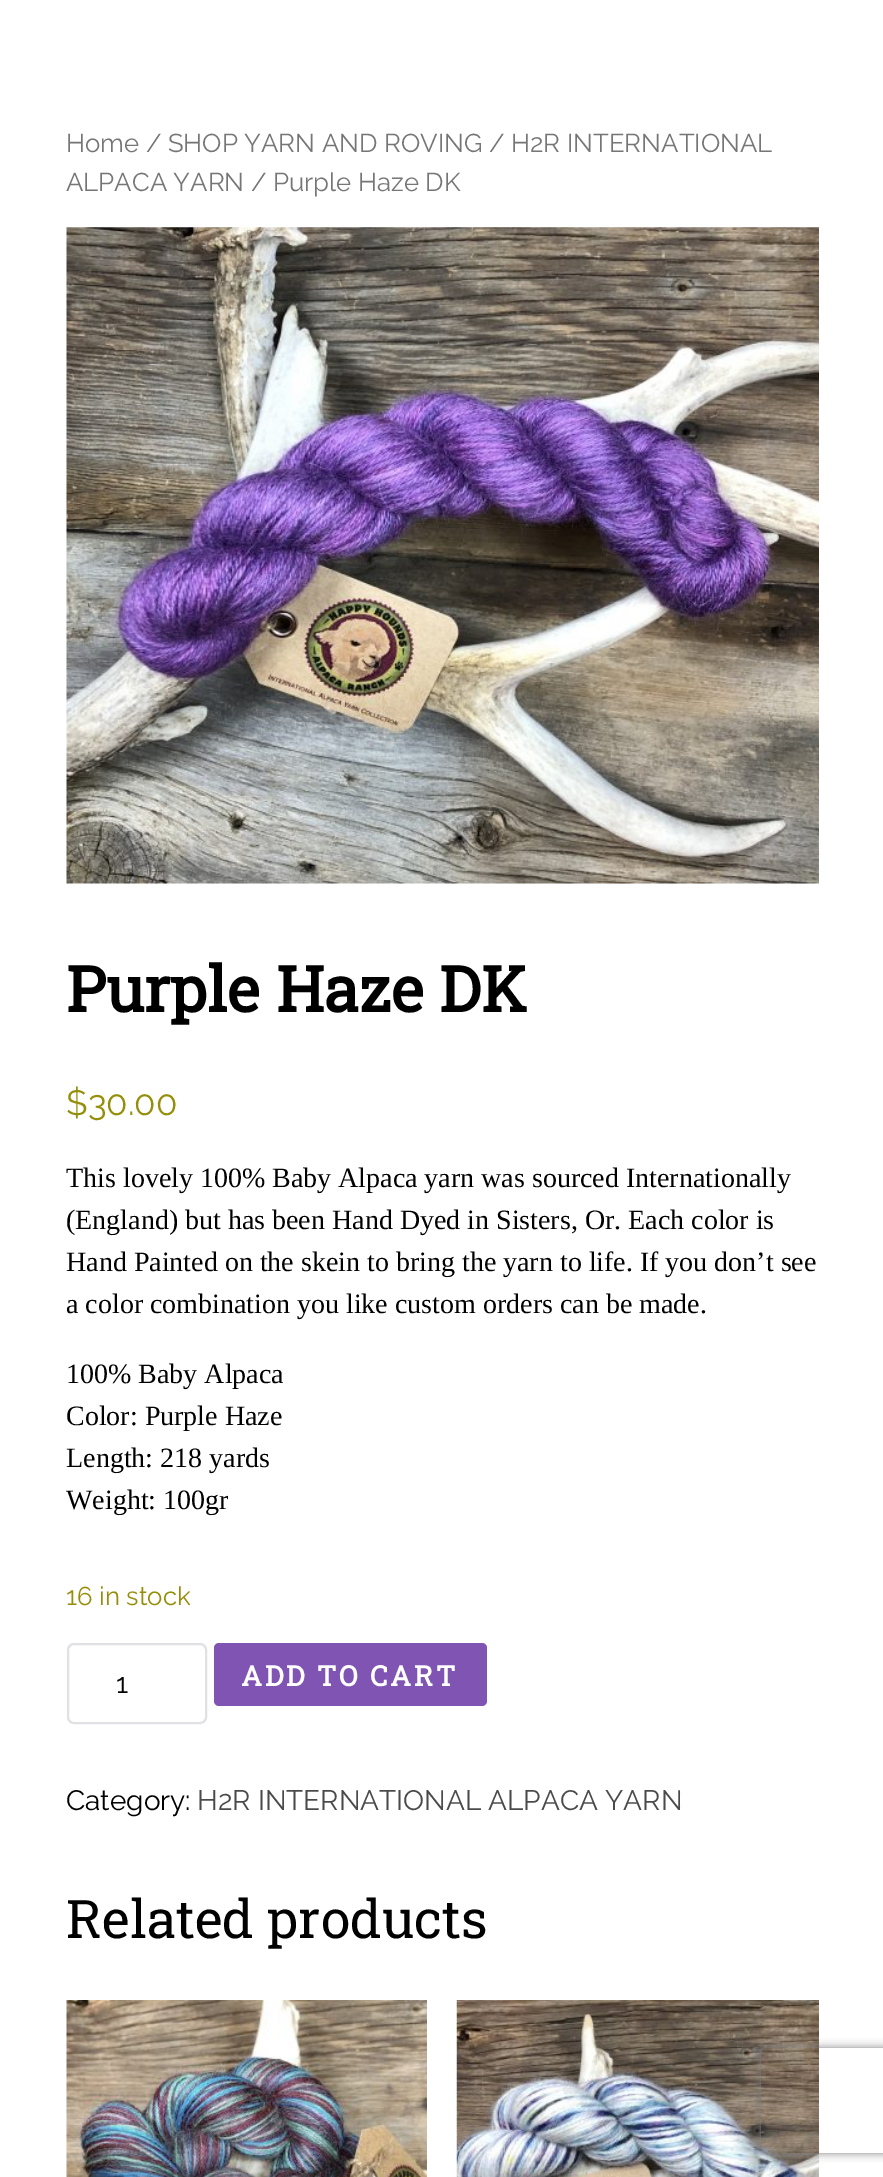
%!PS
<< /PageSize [883 2177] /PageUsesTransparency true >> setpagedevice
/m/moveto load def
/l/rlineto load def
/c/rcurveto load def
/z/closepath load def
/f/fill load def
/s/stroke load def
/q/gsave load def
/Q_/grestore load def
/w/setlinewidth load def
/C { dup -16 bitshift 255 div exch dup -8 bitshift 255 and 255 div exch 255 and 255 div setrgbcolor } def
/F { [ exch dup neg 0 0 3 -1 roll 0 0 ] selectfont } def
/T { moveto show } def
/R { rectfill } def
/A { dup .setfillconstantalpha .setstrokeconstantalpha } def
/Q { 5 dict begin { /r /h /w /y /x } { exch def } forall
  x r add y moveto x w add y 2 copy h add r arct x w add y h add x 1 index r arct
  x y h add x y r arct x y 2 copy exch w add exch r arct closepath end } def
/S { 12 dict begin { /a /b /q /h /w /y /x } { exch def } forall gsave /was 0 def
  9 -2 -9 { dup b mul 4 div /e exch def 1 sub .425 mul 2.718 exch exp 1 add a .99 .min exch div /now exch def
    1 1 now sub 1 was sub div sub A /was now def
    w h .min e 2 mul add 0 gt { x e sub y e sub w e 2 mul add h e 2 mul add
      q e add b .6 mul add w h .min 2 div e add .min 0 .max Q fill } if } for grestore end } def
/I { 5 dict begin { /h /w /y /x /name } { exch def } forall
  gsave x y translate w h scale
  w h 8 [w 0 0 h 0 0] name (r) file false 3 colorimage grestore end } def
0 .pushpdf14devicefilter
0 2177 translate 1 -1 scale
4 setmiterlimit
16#FFFFFF C
0 0 883 2177 R
/Raleway-Regular 25.75 F
16#767676 C
(Home / SHOP YARN AND ROVING / H2R INTERNATIONAL) 66 152 T
(ALPACA YARN / Purple Haze DK) 66 191 T
(1.rgb) 66 227 753 657 I
/RobotoSlab-Bold 63 F
16#000000 C
(Purple Haze DK) 66 1012 T
/Raleway-Regular 35 F
16#958E09 C
($30.00) 66 1115 T
/LiberationSerif-Regular 28 F
16#000000 C
(This lovely 100% Baby Alpaca yarn was sourced Internationally) 66 1187 T
(\(England\) but has been Hand Dyed in Sisters, Or. Each color is) 66 1229 T
(Hand Painted on the skein to bring the yarn to life. If you don’t see) 66 1271 T
(a color combination you like custom orders can be made.) 66 1313 T
(100% Baby Alpaca) 66 1383 T
(Color: Purple Haze) 66 1425 T
(Length: 218 yards) 66 1467 T
(Weight: 100gr) 66 1509 T
/Raleway-Regular 25.75 F
16#958E09 C
(16 in stock) 66 1605 T
16#E0E0E5 C
2 w
68 1644 138 79 6 Q s
/Raleway-Regular 28 F
16#000000 C
(1) 116 1693 T
16#7F54B3 C
214 1643 273 63 5 Q f
/RobotoSlab-Bold 28 F
16#FFFFFF C
241 1686 m 2.75 0 (ADD TO CART) ashow
/Raleway-Regular 28 F
16#000000 C
(Category:) 66 1810 T
16#4A4A4A C
(H2R INTERNATIONAL ALPACA YARN) 197 1810 T
/RobotoSlab-Regular 53.25 F
16#000000 C
(Related products) 66 1938 T
(2.rgb) 66 2000 361 177 I
(3.rgb) 456 2000 363 177 I
q
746 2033 m 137 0 l 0 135 l -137 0 l z 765 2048 m 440 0 l 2 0 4 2 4 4 c 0 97 l 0 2 -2 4 -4 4 c -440 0 l -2 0 -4 -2 -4 -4 c 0 -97 l 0 -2 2 -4 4 -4 c z eoclip newpath
16#808080 C
761 2048 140 105 4 4.5 1 S
Q_
.poppdf14devicefilter showpage
